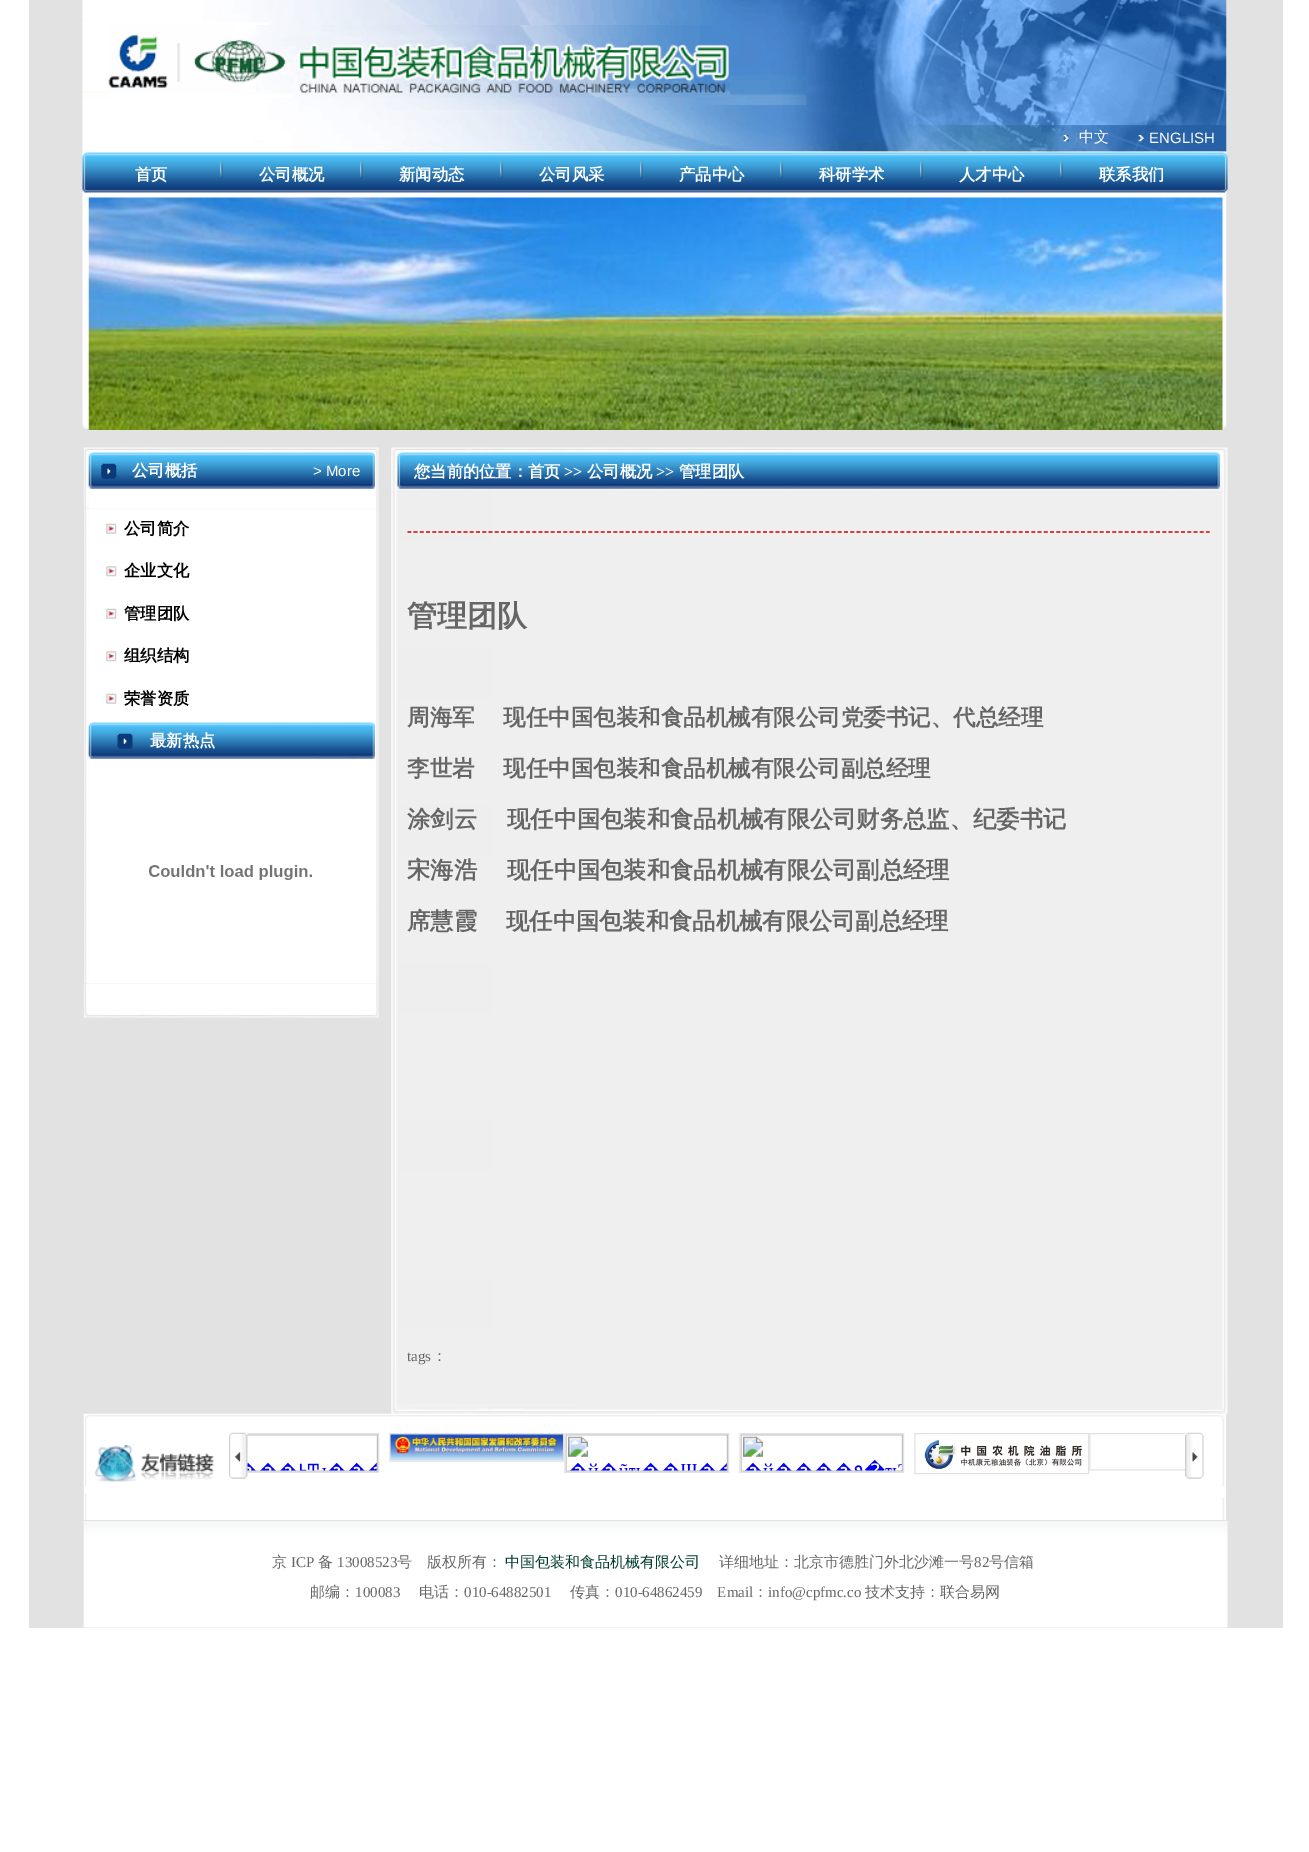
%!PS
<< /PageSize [1309 1852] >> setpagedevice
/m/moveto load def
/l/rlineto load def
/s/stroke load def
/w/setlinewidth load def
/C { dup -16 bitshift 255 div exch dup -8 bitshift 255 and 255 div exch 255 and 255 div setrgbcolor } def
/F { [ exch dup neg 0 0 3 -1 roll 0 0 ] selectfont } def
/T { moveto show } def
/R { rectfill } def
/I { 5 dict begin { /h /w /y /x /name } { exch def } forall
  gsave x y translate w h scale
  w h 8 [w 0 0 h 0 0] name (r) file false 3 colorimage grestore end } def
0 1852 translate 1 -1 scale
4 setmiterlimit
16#FFFFFF C
0 0 1309 1852 R
16#E2E2E2 C
29 0 1254 1628 R
(1.rgb) 82 0 1145 429 I
(2.rgb) 108 25 622 73 I
(3.rgb) 1063 135 6 7 I
/WenQuanYiZenHei-Medium 15 F
16#FFFFFF C
(中文) 1079 142 T
(4.rgb) 1138 135 6 7 I
/LiberationSans-Regular 15 F
(ENGLISH) 1149 143 T
(5.rgb) 82 152 1146 41 I
/WenQuanYiZenHei-Bold 16.25 F
(首页) 135 180 T
(6.rgb) 220 160 3 19 I
(公司概况) 259 180 T
(6.rgb) 360 160 3 19 I
(新闻动态) 399 180 T
(6.rgb) 500 160 3 19 I
(公司风采) 539 180 T
(6.rgb) 640 160 3 19 I
(产品中心) 679 180 T
(6.rgb) 780 160 3 19 I
(科研学术) 819 180 T
(6.rgb) 920 160 3 19 I
(人才中心) 959 180 T
(6.rgb) 1060 160 3 19 I
(联系我们) 1099 180 T
(7.rgb) 88 197 1135 233 I
(8.rgb) 83 447 296 62 I
(9.rgb) 87 452 288 37 I
(10.rgb) 101 463 16 16 I
(公司概括) 132 476 T
/LiberationSans-Regular 15 F
(> More) 313 476 T
(11.rgb) 84 509 295 475 I
(12.rgb) 106 523 11 11 I
/WenQuanYiZenHei-Bold 16.25 F
16#000000 C
(公司简介) 124 534 T
(13.rgb) 106 566 11 11 I
(企业文化) 124 576 T
(12.rgb) 106 608 11 11 I
(管理团队) 124 619 T
(13.rgb) 106 651 11 11 I
(组织结构) 124 661 T
(12.rgb) 106 693 11 11 I
(荣誉资质) 124 704 T
(14.rgb) 87 722 288 37 I
(15.rgb) 117 733 16 16 I
16#FFFFFF C
(最新热点) 150 746 T
(16.rgb) 149 865 163 15 I
(17.rgb) 83 984 296 34 I
(18.rgb) 391 447 837 45 I
(19.rgb) 397 452 823 37 I
(您当前的位置：首页) 414 477 T
/LiberationSerif-Bold 16.25 F
(>>) 564 477 T
/WenQuanYiZenHei-Bold 16.25 F
(公司概况) 587 477 T
/LiberationSerif-Bold 16.25 F
(>>) 656 477 T
/WenQuanYiZenHei-Bold 16.25 F
(管理团队) 679 477 T
(20.rgb) 391 491 837 879 I
16#CC0000 C
1.2 w
[3.75 2.49] 0 setdash
407.5 532 m 802.5 0 l s
/WenQuanYiZenHei-Bold 30 F
16#666666 C
(管理团队) 407 626 T
/WenQuanYiZenHei-Bold 22.5 F
(周海军) 407 725 T
(现任中国包装和食品机械有限公司党委书记、代总经理) 503 725 T
(李世岩) 407 776 T
(现任中国包装和食品机械有限公司副总经理) 503 776 T
/WenQuanYiZenHei-Bold 23.3 F
(涂剑云) 407 827 T
(现任中国包装和食品机械有限公司财务总监、纪委书记) 507 827 T
(宋海浩) 407 878 T
(现任中国包装和食品机械有限公司副总经理) 507 878 T
(席慧霞) 407 929 T
(现任中国包装和食品机械有限公司副总经理) 506 929 T
/LiberationSerif-Regular 15 F
(tags) 407 1361 T
/WenQuanYiZenHei-Medium 15 F
(：) 432 1361 T
(22.rgb) 83 1413 1142 107 I
(21.rgb) 391 1370 837 44 I
16#FFFFFF C
1225 1414 1 106 R
(23.rgb) 229 1432 975 47 I
(24.rgb) 83 1521 1145 107 I
16#666666 C
(京) 272 1567 T
/LiberationSerif-Regular 15 F
(ICP) 291 1567 T
/WenQuanYiZenHei-Medium 15 F
(备) 318 1567 T
/LiberationSerif-Regular 15 F
(13008523) 337 1567 T
/WenQuanYiZenHei-Medium 15 F
(号) 397 1567 T
(版权所有：) 427 1567 T
16#003B2F C
(中国包装和食品机械有限公司) 505 1567 T
16#666666 C
(详细地址：北京市德胜门外北沙滩一号) 719 1567 T
/LiberationSerif-Regular 15 F
(82) 974 1567 T
/WenQuanYiZenHei-Medium 15 F
(号信箱) 989 1567 T
(邮编：) 310 1597 T
/LiberationSerif-Regular 15 F
(100083) 355 1597 T
/WenQuanYiZenHei-Medium 15 F
(电话：) 419 1597 T
/LiberationSerif-Regular 15 F
(010-64882501) 464 1597 T
/WenQuanYiZenHei-Medium 15 F
(传真：) 570 1597 T
/LiberationSerif-Regular 15 F
(010-64862459    Email) 615 1597 T
/WenQuanYiZenHei-Medium 15 F
(：) 753 1597 T
/LiberationSerif-Regular 15 F
(info@cpfmc.co) 768 1597 T
/WenQuanYiZenHei-Medium 15 F
(技术支持：联合易网) 865 1597 T
showpage
